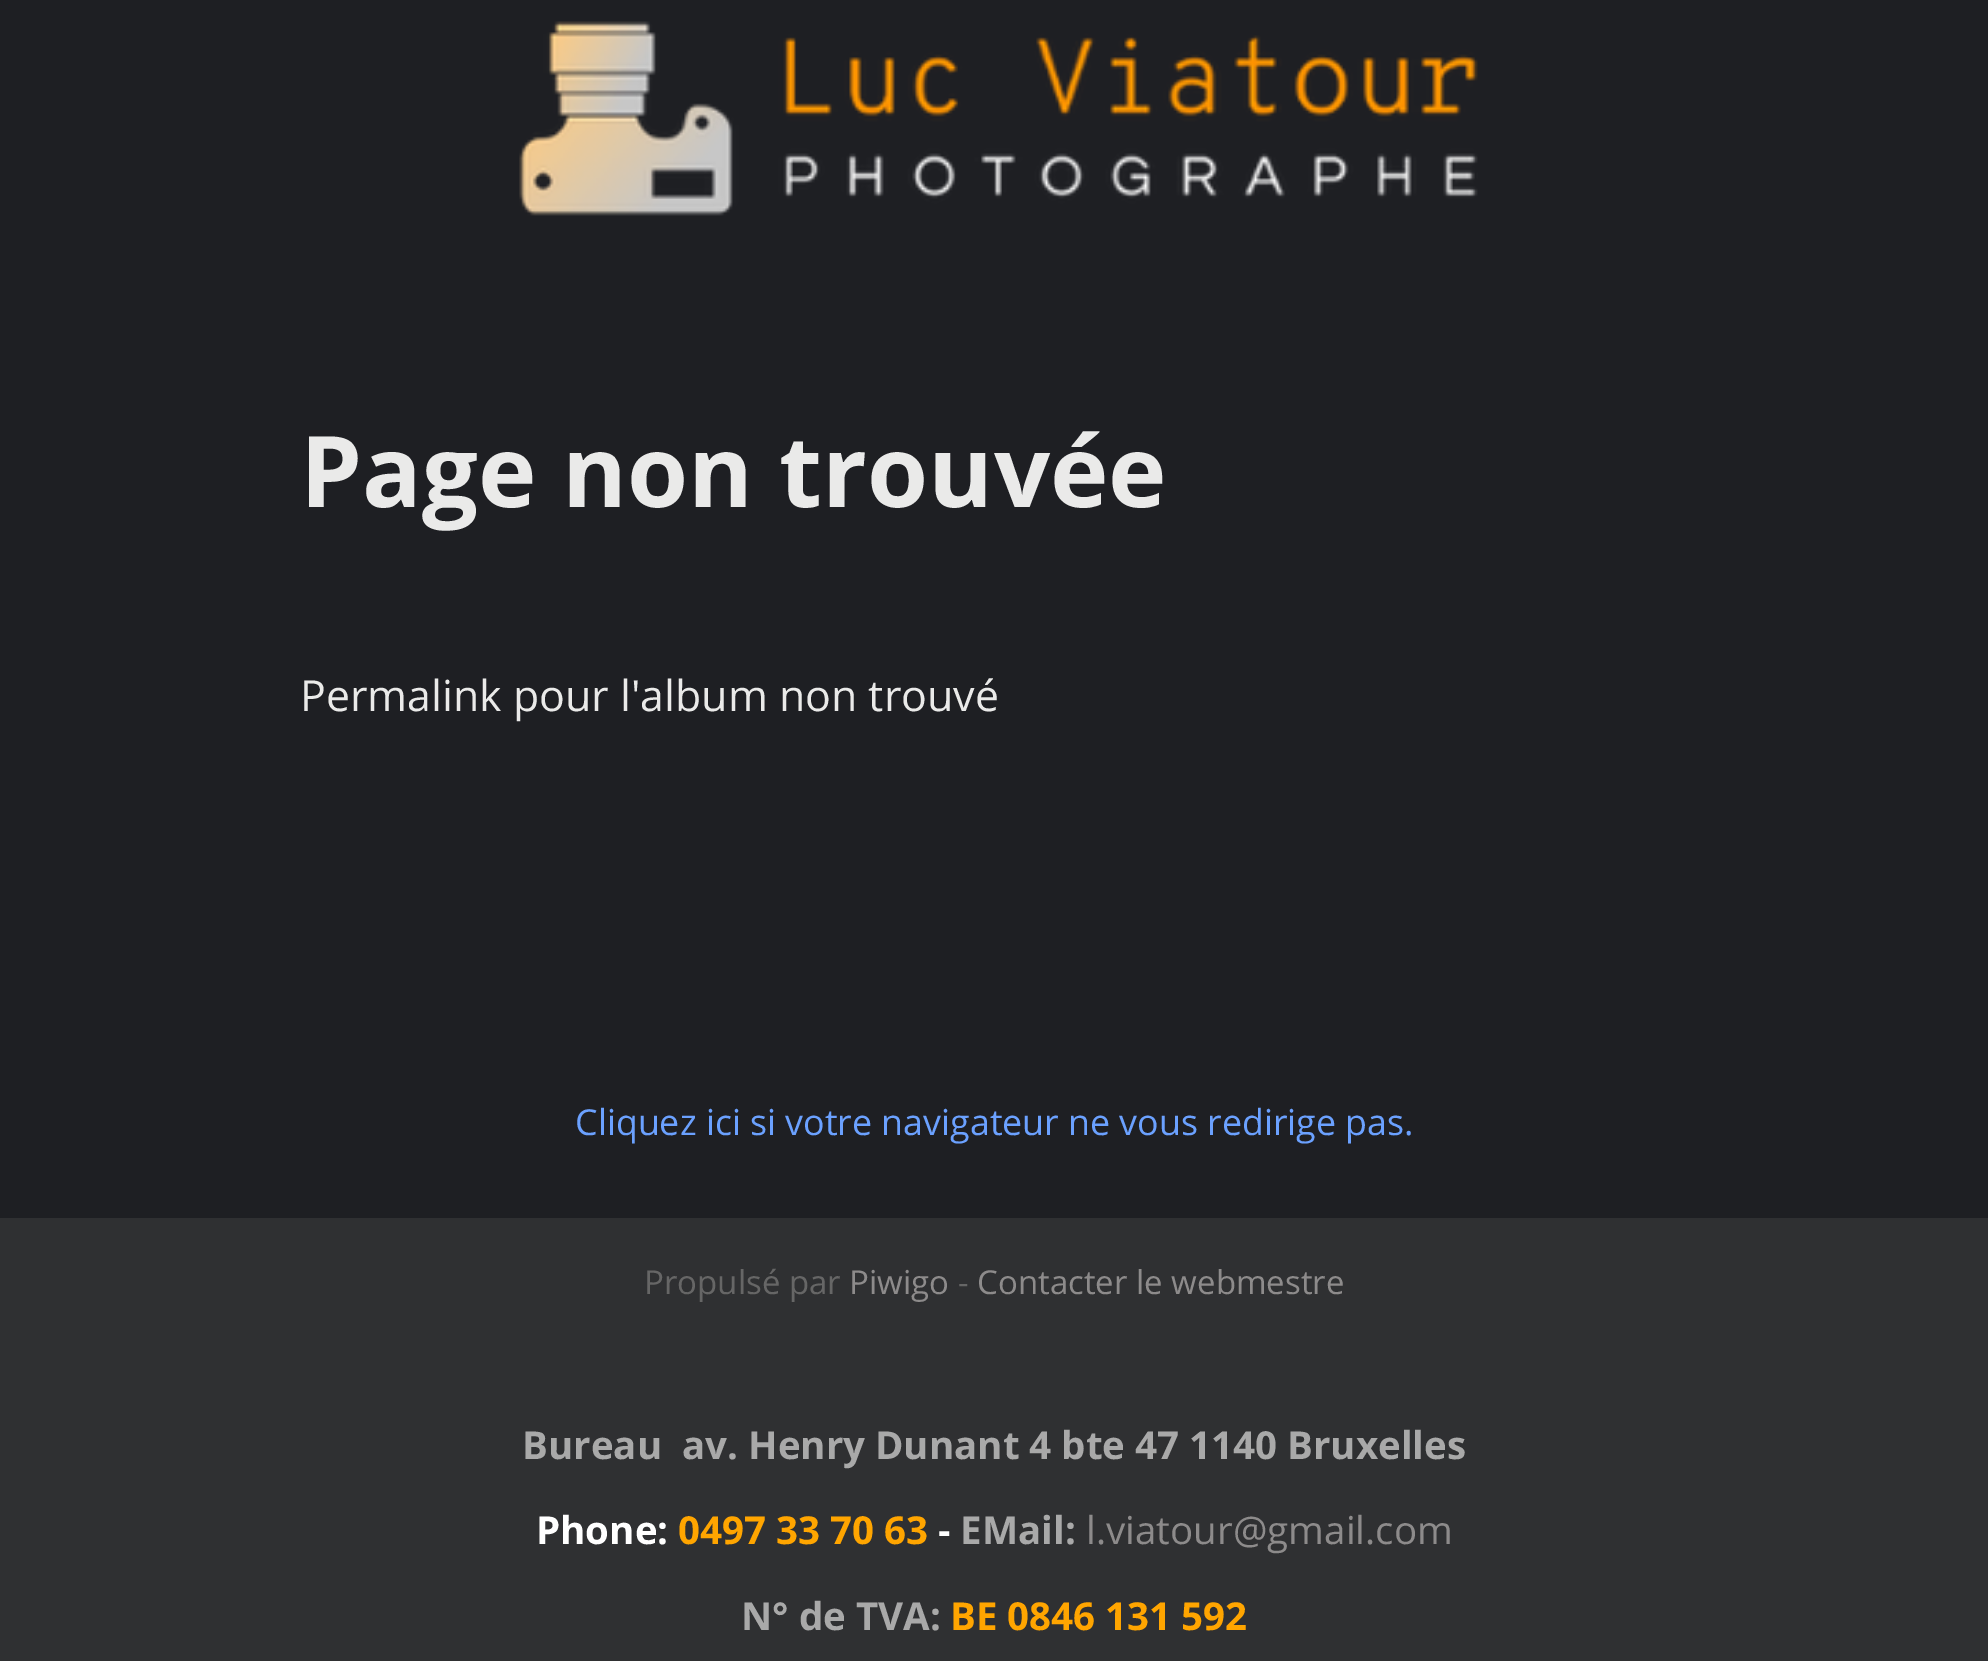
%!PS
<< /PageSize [1988 1661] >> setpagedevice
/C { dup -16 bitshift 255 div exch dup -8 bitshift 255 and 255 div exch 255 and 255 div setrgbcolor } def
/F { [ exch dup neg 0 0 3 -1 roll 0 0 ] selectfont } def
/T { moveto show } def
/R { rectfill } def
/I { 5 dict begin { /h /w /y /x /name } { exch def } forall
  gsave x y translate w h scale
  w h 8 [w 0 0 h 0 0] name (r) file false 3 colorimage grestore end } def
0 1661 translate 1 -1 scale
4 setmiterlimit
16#1E1F23 C
0 0 1988 1661 R
(1.rgb) 519 21 959 195 I
/OpenSans-Bold 99 F
16#EAEAE9 C
(Page non trouvée) 300 507 T
/OpenSans-Regular 42.9 F
(Permalink pour l'album non trouvé) 300 711 T
/OpenSans-Regular 35.75 F
16#6BA1FF C
(Cliquez ici si votre navigateur ne vous redirige pas.) 575 1135 T
16#2F3032 C
0 1218 1988 443 R
/OpenSans-Regular 33 F
16#666666 C
(Propulsé par) 644 1294 T
16#8D8B8B C
(Piwigo) 849 1294 T
16#666666 C
(-) 958 1294 T
16#8D8B8B C
(Contacter le webmestre) 977 1294 T
/OpenSans-Bold 38.5 F
16#A9A9A9 C
(Bureau  av. Henry Dunant 4 bte 47 1140 Bruxelles) 522 1459 T
16#FFFFFF C
(Phone:) 536 1544 T
16#FFA500 C
(0497 33 70 63) 678 1544 T
16#FFFFFF C
(-) 938 1544 T
16#A9A9A9 C
(EMail:) 960 1544 T
/OpenSans-Regular 38.5 F
16#8D8B8B C
(l.viatour@gmail.com) 1086 1544 T
/OpenSans-Bold 38.5 F
16#A9A9A9 C
(N° de TVA:) 741 1630 T
16#FFA500 C
(BE 0846 131 592) 950 1630 T
showpage
